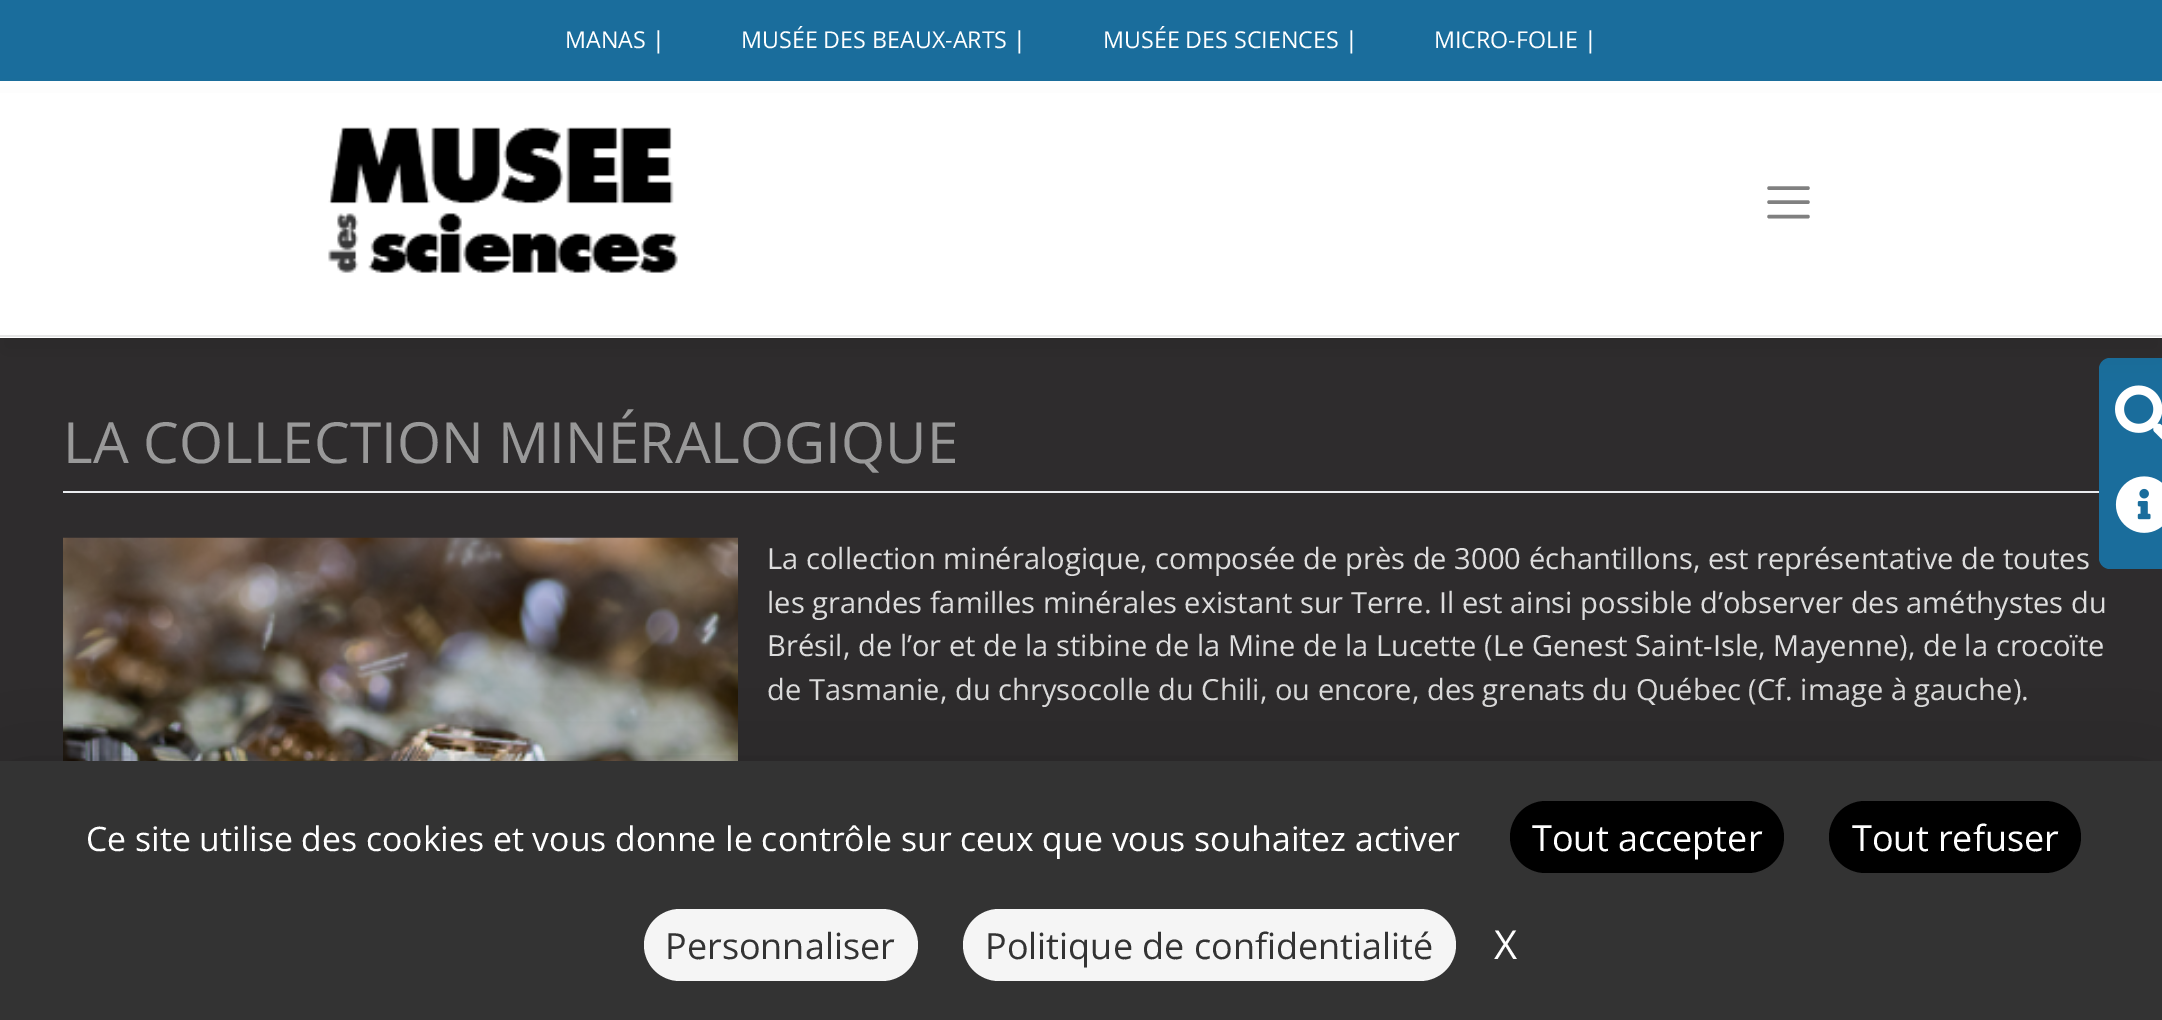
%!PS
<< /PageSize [2162 1020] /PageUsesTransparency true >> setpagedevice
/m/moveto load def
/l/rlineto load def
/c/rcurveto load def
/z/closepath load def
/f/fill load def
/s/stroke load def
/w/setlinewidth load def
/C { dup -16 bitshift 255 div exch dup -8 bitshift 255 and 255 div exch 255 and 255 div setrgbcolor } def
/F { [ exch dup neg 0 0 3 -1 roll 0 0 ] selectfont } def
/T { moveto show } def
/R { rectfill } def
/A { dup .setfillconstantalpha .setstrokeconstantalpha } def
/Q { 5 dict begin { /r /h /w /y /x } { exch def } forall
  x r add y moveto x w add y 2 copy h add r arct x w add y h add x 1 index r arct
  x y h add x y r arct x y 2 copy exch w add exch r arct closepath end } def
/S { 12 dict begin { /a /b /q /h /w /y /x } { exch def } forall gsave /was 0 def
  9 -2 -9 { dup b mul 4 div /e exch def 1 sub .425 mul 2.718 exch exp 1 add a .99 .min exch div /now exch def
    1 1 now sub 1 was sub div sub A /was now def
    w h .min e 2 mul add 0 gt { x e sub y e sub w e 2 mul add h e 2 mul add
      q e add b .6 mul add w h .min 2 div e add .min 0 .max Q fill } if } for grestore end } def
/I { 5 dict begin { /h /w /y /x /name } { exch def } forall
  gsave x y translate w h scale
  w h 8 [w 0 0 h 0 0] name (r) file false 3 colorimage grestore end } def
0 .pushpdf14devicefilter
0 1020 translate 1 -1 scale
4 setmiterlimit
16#FFFFFF C
0 0 2162 1020 R
16#1A6D9C C
0 0 2162 81 R
/OpenSans-Regular 23.25 F
16#FFFFFF C
(MANAS |) 565 48 T
(MUSÉE DES BEAUX-ARTS |) 741 48 T
(MUSÉE DES SCIENCES |) 1103 48 T
(MICRO-FOLIE |) 1434 48 T
16#2E2C2D C
0 338 2162 423 R
16#1A6D9C C
2110 358 m 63 0 l 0 211 l -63 0 l -6 0 -11 -5 -11 -11 c 0 -189 l 0 -6 5 -11 11 -11 c z f
(3.rgb) 2115 385 47 55 I
16#000000 C
0 106 2162 247 0 16 .05 S
16#FFFFFF C
0 93 2162 245 R
16#E6E6E6 C
0 335 2162 2 R
(1.rgb) 328 127 350 146 I
16#808080 C
3.5 w
1 setlinecap
1769 188 m 39 0 l 1769 202 m 39 0 l 1769 216.5 m 39 0 l s
16#EAECEF C
63 491 2036 2 R
/OpenSans-Regular 56.75 F
16#999999 C
(LA COLLECTION MINÉRALOGIQUE) 63 463 T
(2.rgb) 63 537 675 224 I
/OpenSans-Regular 29.15 F
16#DDDDDD C
(La collection minéralogique, composée de près de 3000 échantillons, est représentative de toutes) 767 569 T
(les grandes familles minérales existant sur Terre. Il est ainsi possible d’observer des améthystes du) 767 613 T
(Brésil, de l’or et de la stibine de la Mine de la Lucette \(Le Genest Saint-Isle, Mayenne\), de la crocoïte) 767 656 T
(de Tasmanie, du chrysocolle du Chili, ou encore, des grenats du Québec \(Cf. image à gauche\).) 767 700 T
(4.rgb) 2115 476 47 57 I
16#000000 C
0 806 2162 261 0 67.5 .25 S
16#333333 C
0 761 2162 259 R
/OpenSans-Regular 33.75 F
16#FFFFFF C
(Ce site utilise des cookies et vous donne le contrôle sur ceux que vous souhaitez activer) 86 851 T
16#000000 C
1510 801 274 72 36 Q f
/OpenSans-Regular 36 F
16#FFFFFF C
(Tout accepter) 1532 851 T
16#000000 C
1829 801 252 72 36 Q f
16#FFFFFF C
(Tout refuser) 1852 851 T
16#F5F5F5 C
644 909 274 72 36 Q f
16#333333 C
(Personnaliser) 665 959 T
16#F5F5F5 C
963 909 493 72 36 Q f
16#333333 C
(Politique de confidentialité) 985 959 T
/OpenSans-Regular 40 F
16#FFFFFF C
(X) 1494 959 T
.poppdf14devicefilter showpage
